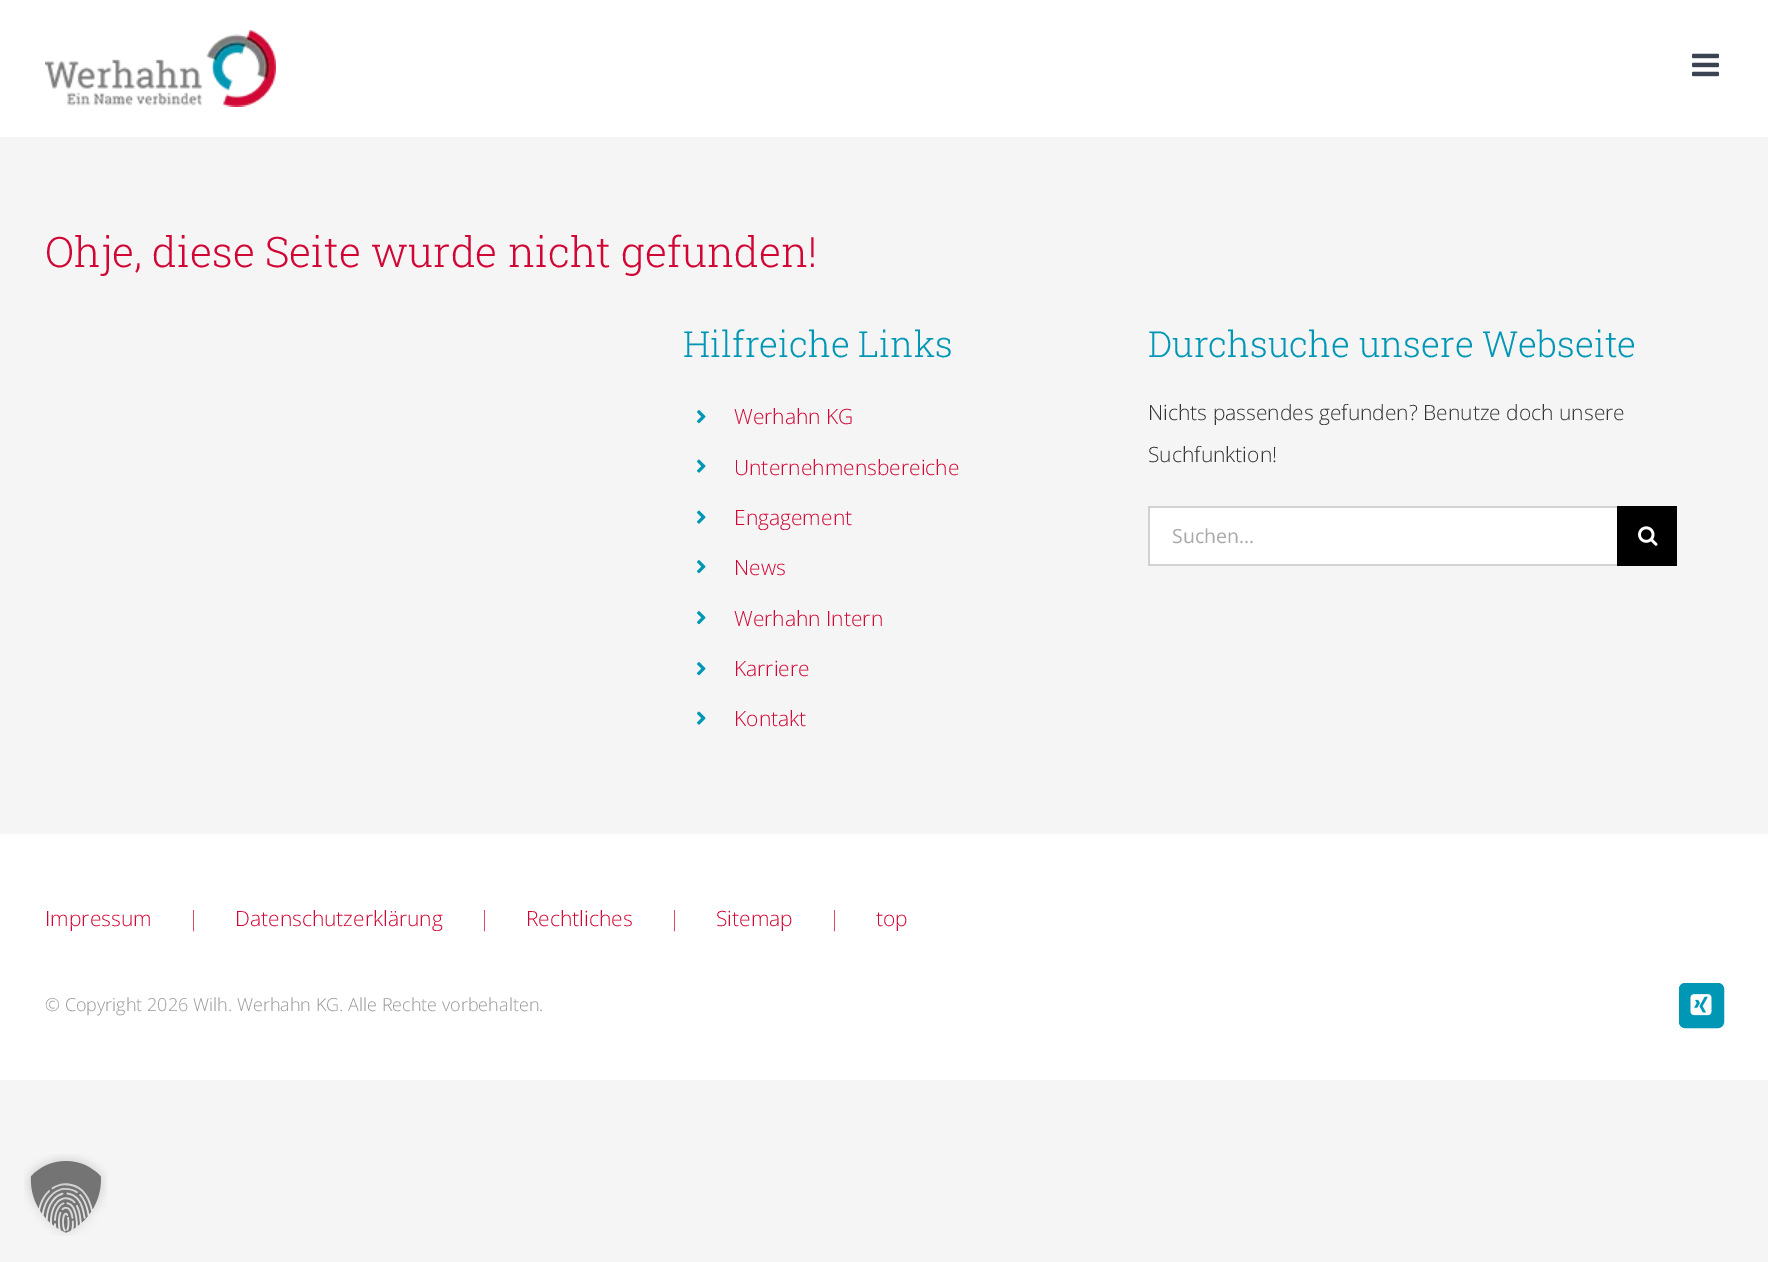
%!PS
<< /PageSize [1768 1262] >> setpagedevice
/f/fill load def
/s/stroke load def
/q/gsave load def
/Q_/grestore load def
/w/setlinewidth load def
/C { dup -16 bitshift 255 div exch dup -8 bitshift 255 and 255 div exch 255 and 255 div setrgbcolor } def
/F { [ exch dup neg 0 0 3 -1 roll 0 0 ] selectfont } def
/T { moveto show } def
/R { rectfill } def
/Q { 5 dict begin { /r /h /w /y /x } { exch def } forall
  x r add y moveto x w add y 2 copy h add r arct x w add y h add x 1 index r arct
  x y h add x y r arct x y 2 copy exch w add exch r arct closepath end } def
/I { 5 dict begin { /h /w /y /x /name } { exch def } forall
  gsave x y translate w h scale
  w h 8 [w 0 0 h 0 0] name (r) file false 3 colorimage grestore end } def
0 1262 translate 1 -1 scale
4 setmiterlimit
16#F5F5F5 C
0 0 1768 1262 R
16#FFFFFF C
0 0 1768 137 R
(1.rgb) 45 30 231 77 I
(2.rgb) 1692 53 27 24 I
/RobotoSlab-Light 42 F
16#D20635 C
(Ohje, diese Seite wurde nicht gefunden!) 45 267 T
/RobotoSlab-Light 36 F
16#0096B5 C
(Hilfreiche Links) 683 357 T
(3.rgb) 697 410 9 14 I
/OpenSans-Light 21 F
16#D20635 C
(Werhahn KG) 734 424 T
(4.rgb) 697 459 9 14 I
(Unternehmensbereiche) 734 475 T
(4.rgb) 697 510 9 14 I
(Engagement) 734 525 T
(3.rgb) 697 560 9 14 I
(News) 734 575 T
(3.rgb) 697 611 9 14 I
(Werhahn Intern) 734 626 T
(3.rgb) 697 662 9 14 I
(Karriere) 734 676 T
(4.rgb) 697 711 9 14 I
(Kontakt) 734 726 T
/RobotoSlab-Light 36 F
16#0096B5 C
(Durchsuche unsere Webseite) 1148 357 T
/OpenSans-Light 21 F
16#333333 C
(Nichts passendes gefunden? Benutze doch unsere) 1148 420 T
(Suchfunktion!) 1148 462 T
16#FFFFFF C
1150 508 467 56 R
16#D2D2D2 C
1148 506 469 2 R
1148 564 469 2 R
1148 506 2 60 R
/OpenSans-Regular 19.5 F
16#AAA9A9 C
(Suchen...) 1172 543 T
16#000000 C
1617 506 60 60 R
(5.rgb) 1638 526 20 20 I
16#FFFFFF C
0 834 1768 246 R
/OpenSans-Light 21 F
16#D20635 C
(Impressum) 45 926 T
(|) 188 926 T
(Datenschutzerklärung) 235 926 T
(|) 479 926 T
(Rechtliches) 526 926 T
(|) 669 926 T
(Sitemap) 716 926 T
(|) 829 926 T
(top) 876 926 T
/OpenSans-Light 18 F
16#999999 C
(© Copyright 2026 Wilh. Werhahn KG. Alle Rechte vorbehalten.) 45 1011 T
16#0096B5 C
1680 984 43 43 5 Q q f Q_
2 w
s
(6.rgb) 1690 994 22 22 I
(7.rgb) 24 1154 83 82 I
showpage
